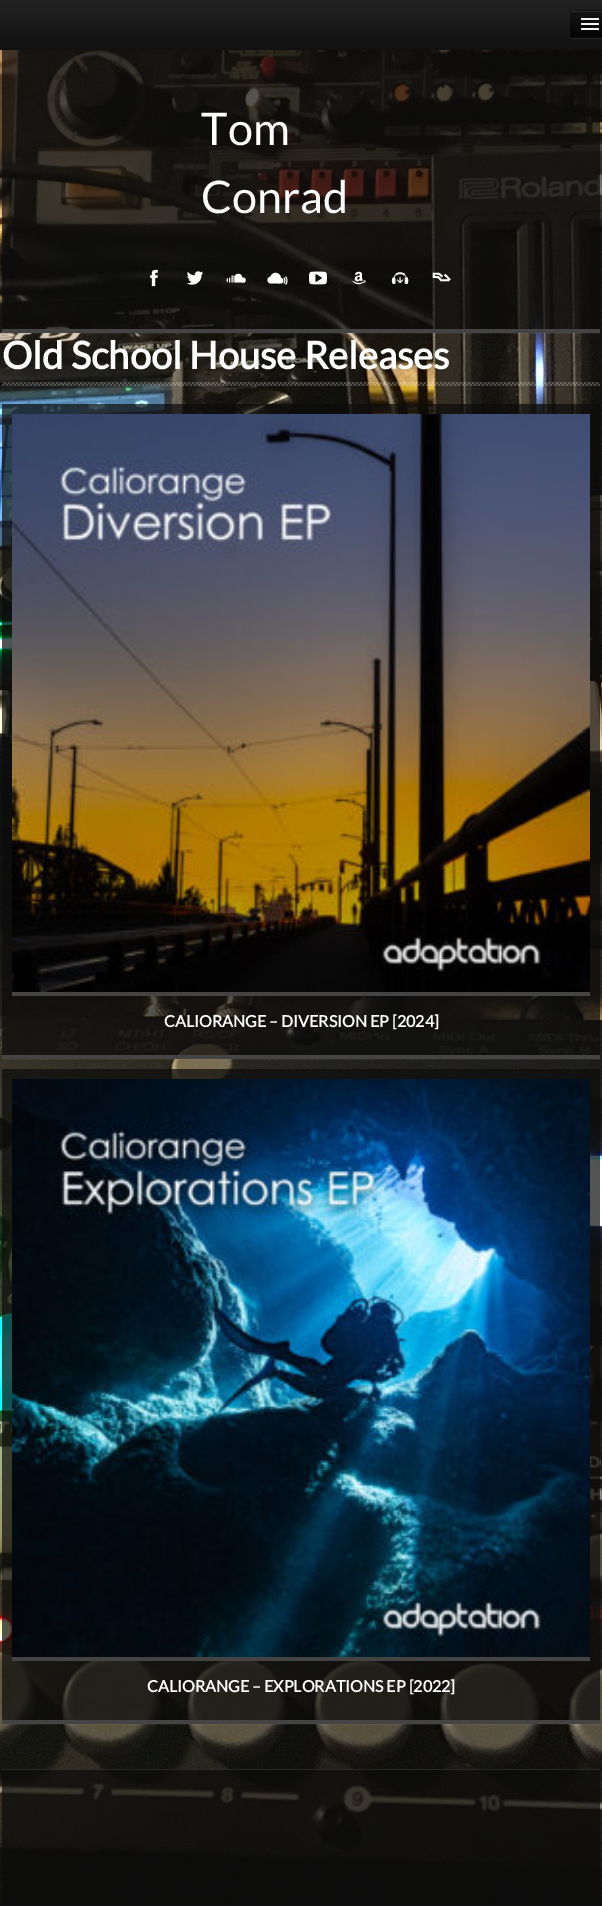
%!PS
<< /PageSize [602 1906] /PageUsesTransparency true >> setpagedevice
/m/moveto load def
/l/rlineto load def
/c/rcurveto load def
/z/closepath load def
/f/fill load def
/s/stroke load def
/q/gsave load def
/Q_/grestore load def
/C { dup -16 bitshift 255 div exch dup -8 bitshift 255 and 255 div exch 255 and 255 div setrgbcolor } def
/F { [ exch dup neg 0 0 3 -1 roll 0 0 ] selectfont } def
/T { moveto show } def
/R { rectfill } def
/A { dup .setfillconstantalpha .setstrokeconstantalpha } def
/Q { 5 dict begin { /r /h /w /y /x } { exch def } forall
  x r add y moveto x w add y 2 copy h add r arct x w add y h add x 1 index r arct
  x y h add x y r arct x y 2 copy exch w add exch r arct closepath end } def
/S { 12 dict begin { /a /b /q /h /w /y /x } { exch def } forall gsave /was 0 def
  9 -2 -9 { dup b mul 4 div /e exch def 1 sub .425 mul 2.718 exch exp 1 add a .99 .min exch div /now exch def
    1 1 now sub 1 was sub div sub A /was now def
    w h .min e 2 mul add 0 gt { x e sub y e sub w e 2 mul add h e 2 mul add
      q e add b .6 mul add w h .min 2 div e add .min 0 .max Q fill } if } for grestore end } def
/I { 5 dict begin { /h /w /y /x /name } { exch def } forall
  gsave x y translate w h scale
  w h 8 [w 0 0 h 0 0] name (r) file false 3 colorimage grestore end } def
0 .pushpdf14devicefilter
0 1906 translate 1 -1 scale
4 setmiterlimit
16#FFFFFF C
0 0 602 1906 R
(1.rgb) 0 50 602 1856 I
16#000000 C
-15 1 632 50 0 5 .1 S
q 0 0 m 602 0 l 0 50 l -602 0 l z clip newpath
<< /ShadingType 2 /ColorSpace /DeviceRGB /Coords [301 0 301 50] /Extend [true true] /Function << /FunctionType 2 /Domain [0 1] /C0 [.133 .133 .133] /C1 [.067 .067 .067] /N 1 >> >> shfill Q_
16#272727 C
570 36 m 0 4 4 3 8 3 c 24 0 l 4 0 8 1 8 -3 c 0 1 -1 2 -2 2 c -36 0 l -1 0 -2 -1 -2 -2 c z f
16#0E0E0E C
570 10 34 28 2 Q f
q 570 11 m 32 0 l 0 26 l -32 0 l z clip newpath
<< /ShadingType 2 /ColorSpace /DeviceRGB /Coords [590 11 590 37] /Extend [true true] /Function << /FunctionType 2 /Domain [0 1] /C0 [.082 .082 .082] /C1 [.016 .016 .016] /N 1 >> >> shfill Q_
16#2C2C2C C
572 12 m 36.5 0 l .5 1 l 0 -3.5 -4 -2 -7 -2 c -24 0 l -3.5 0 -7 -1.5 -7 2 c z f
16#0B0B0B C
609 37 m -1 .5 l -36 0 l -1 -.5 l s
581 19.5 m -1 2 3.5 1.5 3.5 1.5 c 11 0 l 0 0 4.5 .5 3.5 -1.5 c -1 1 -7.5 .5 -9 .5 c -1.5 0 -8 .5 -9 -.5 c z f
16#F5F5F5 C
581 18 18 2 1 Q f
16#090909 C
581 24.5 m -1 2 3.5 1.5 3.5 1.5 c 11 0 l 0 0 4.5 .5 3.5 -1.5 c -1 1 -7.5 .5 -9 .5 c -1.5 0 -8 .5 -9 -.5 c z f
16#F5F5F5 C
581 23 18 2 1 Q f
581 28 18 2 1 Q f
0.05 A
16#FFFFFF C
2 333 598 1 R
0.7 A
16#0B0B0B C
2 50 598 279 R
1 A
16#444444 C
2 329 598 4 R
/Lato-Regular 45 F
16#FFFFFF C
(Tom) 201 145 T
(Conrad) 201 213 T
(2.rgb) 150 269 8 18 I
(3.rgb) 187 271 16 14 I
/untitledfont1-Regular 24 F
(") 224 289 T
/untitledfont1-Regular 23 F
(9) 266 290 T
(4.rgb) 309 271 18 14 I
(5.rgb) 352 271 14 14 I
/untitledfont1-Regular 18 F
(5) 391 287 T
/untitledfont1-Regular 22 F
(!) 430 287 T
(6.rgb) 2 382 598 4 I
/Lato-Bold 38 F
(Old School House Releases) 2 369 T
0.05 A
2 1059 598 1 R
0.7 A
16#0B0B0B C
2 404 598 651 R
1 A
16#444444 C
2 1055 598 4 R
(7.rgb) 12 414 578 578 I
12 992 578 4 R
/Lato-Bold 16 F
16#FFFFFF C
(CALIORANGE – DIVERSION EP [2024]) 164 1027 T
0.05 A
2 1724 598 1 R
0.7 A
16#0B0B0B C
2 1069 598 651 R
1 A
16#444444 C
2 1720 598 4 R
(8.rgb) 12 1079 578 578 I
12 1657 578 4 R
16#FFFFFF C
(CALIORANGE – EXPLORATIONS EP [2022]) 147 1692 T
0.7 A
16#0B0B0B C
2 1769 598 136 R
0.1 A
16#FFFFFF C
2 1769 598 1 R
1 A
16#111111 C
2 1905 598 1 R
.poppdf14devicefilter showpage
